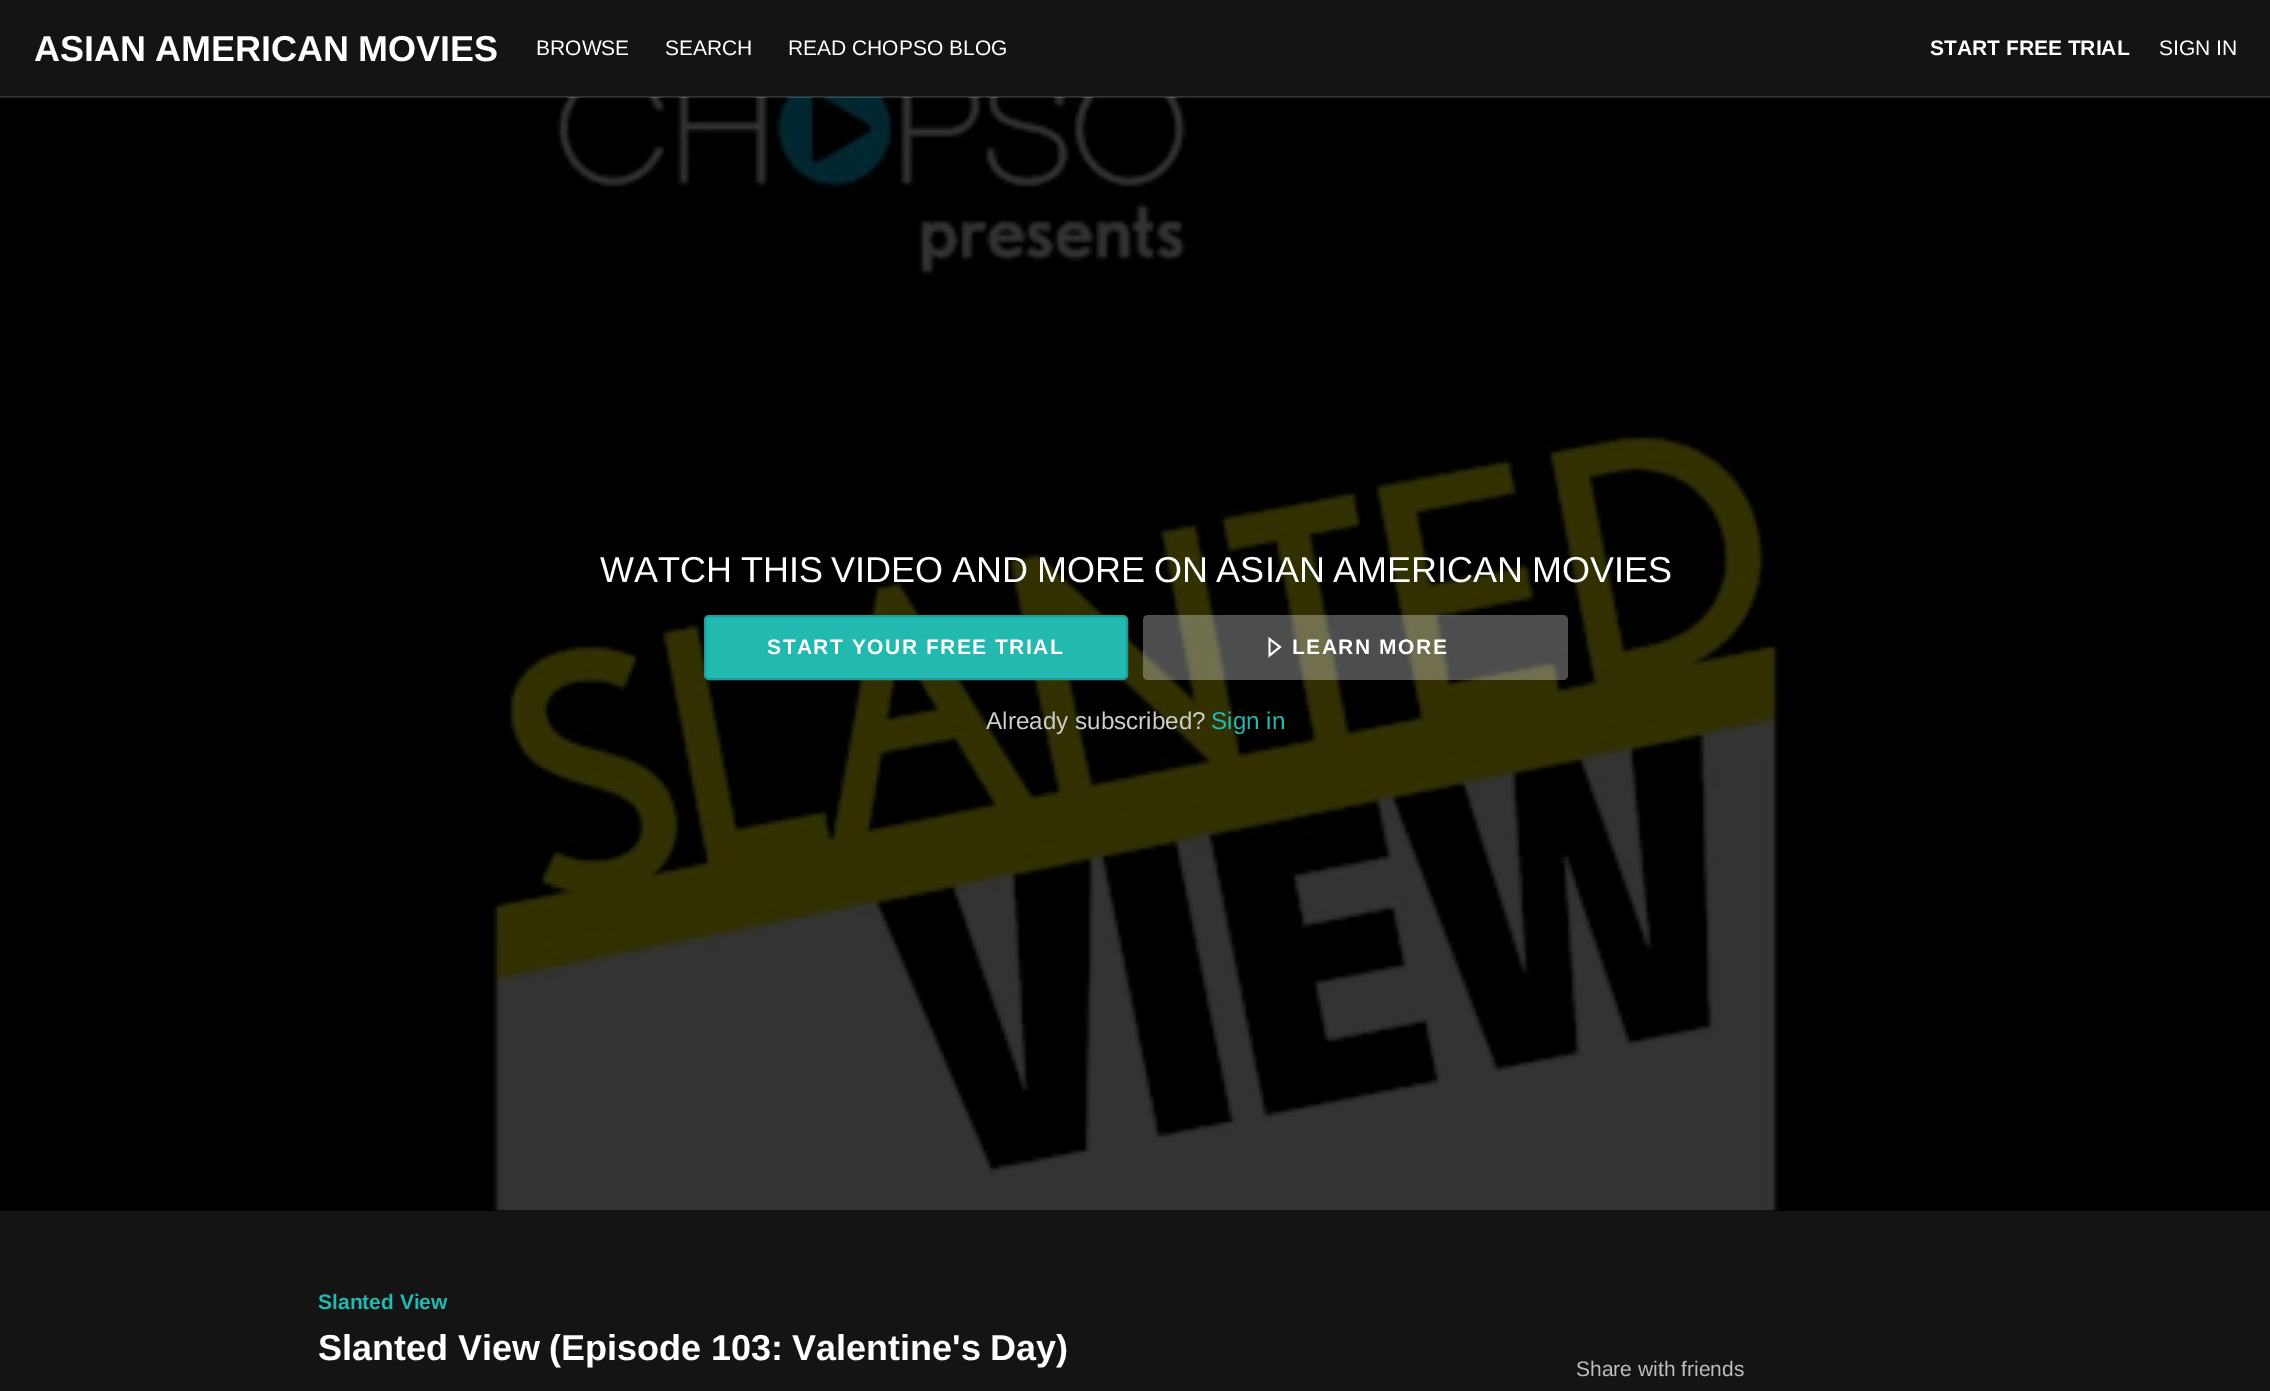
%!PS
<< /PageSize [2270 1391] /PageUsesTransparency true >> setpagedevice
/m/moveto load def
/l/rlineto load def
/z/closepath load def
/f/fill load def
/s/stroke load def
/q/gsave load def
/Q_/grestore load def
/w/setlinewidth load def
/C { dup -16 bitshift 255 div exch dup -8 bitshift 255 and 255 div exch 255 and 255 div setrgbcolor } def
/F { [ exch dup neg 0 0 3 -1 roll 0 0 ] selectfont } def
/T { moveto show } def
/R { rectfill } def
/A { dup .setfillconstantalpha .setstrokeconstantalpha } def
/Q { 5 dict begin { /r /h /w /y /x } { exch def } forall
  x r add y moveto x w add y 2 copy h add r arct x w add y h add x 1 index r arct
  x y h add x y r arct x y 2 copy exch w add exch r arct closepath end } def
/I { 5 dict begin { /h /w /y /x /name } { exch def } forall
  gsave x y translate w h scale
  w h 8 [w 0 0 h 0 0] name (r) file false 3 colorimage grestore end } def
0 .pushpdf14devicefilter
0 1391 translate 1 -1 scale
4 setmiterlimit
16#141414 C
0 0 2270 1391 R
16#323232 C
0 96 2270 2 R
/LiberationSans-Bold 36 F
16#FFFFFF C
34 61 m -1 0 32 (ASIAN AMERICAN MOVIES) widthshow
/LiberationSans-Regular 21 F
(BROWSE) 536 55 T
(SEARCH) 665 55 T
(READ CHOPSO BLOG) 788 55 T
/LiberationSans-Bold 21 F
(START FREE TRIAL) 1930 55 T
/LiberationSans-Regular 21 F
(SIGN IN) 2159 55 T
16#000000 C
0 1210 2270 1 R
(1.rgb) 0 97 2270 1114 I
/LiberationSans-Regular 36 F
16#FFFFFF C
600 582 m -1.25 0 32 (WATCH THIS VIDEO AND MORE ON ASIAN AMERICAN MOVIES) widthshow
16#22B9B0 C
705 616 422 63 4 Q q f Q_
16#1D9D96 C
2 w
s
/LiberationSans-Bold 21 F
16#FFFFFF C
767 654 m 1.5 0 (START YOUR FREE TRIAL) ashow
0.3 A
1143 615 425 65 5 Q f
1 A
1268.5 657.5 m 0 -20.5 l 13 10 l z 1270.5 641 m 0 12.5 l 8 -6.5 l z f
1292 654 m 1.5 0 (LEARN MORE) ashow
/LiberationSans-Regular 24.25 F
16#CFCFCC C
(Already subscribed?) 986 729 T
16#22B9B0 C
(Sign in) 1211 729 T
/LiberationSans-Bold 21 F
(Slanted View) 318 1309 T
/LiberationSans-Bold 36 F
16#FFFFFF C
318 1360 m -.5 0 32 (Slanted View \(Episode 103: Valentine's Day\)) widthshow
/LiberationSans-Regular 21 F
16#BEBEBB C
(Share with friends) 1576 1376 T
.poppdf14devicefilter showpage
